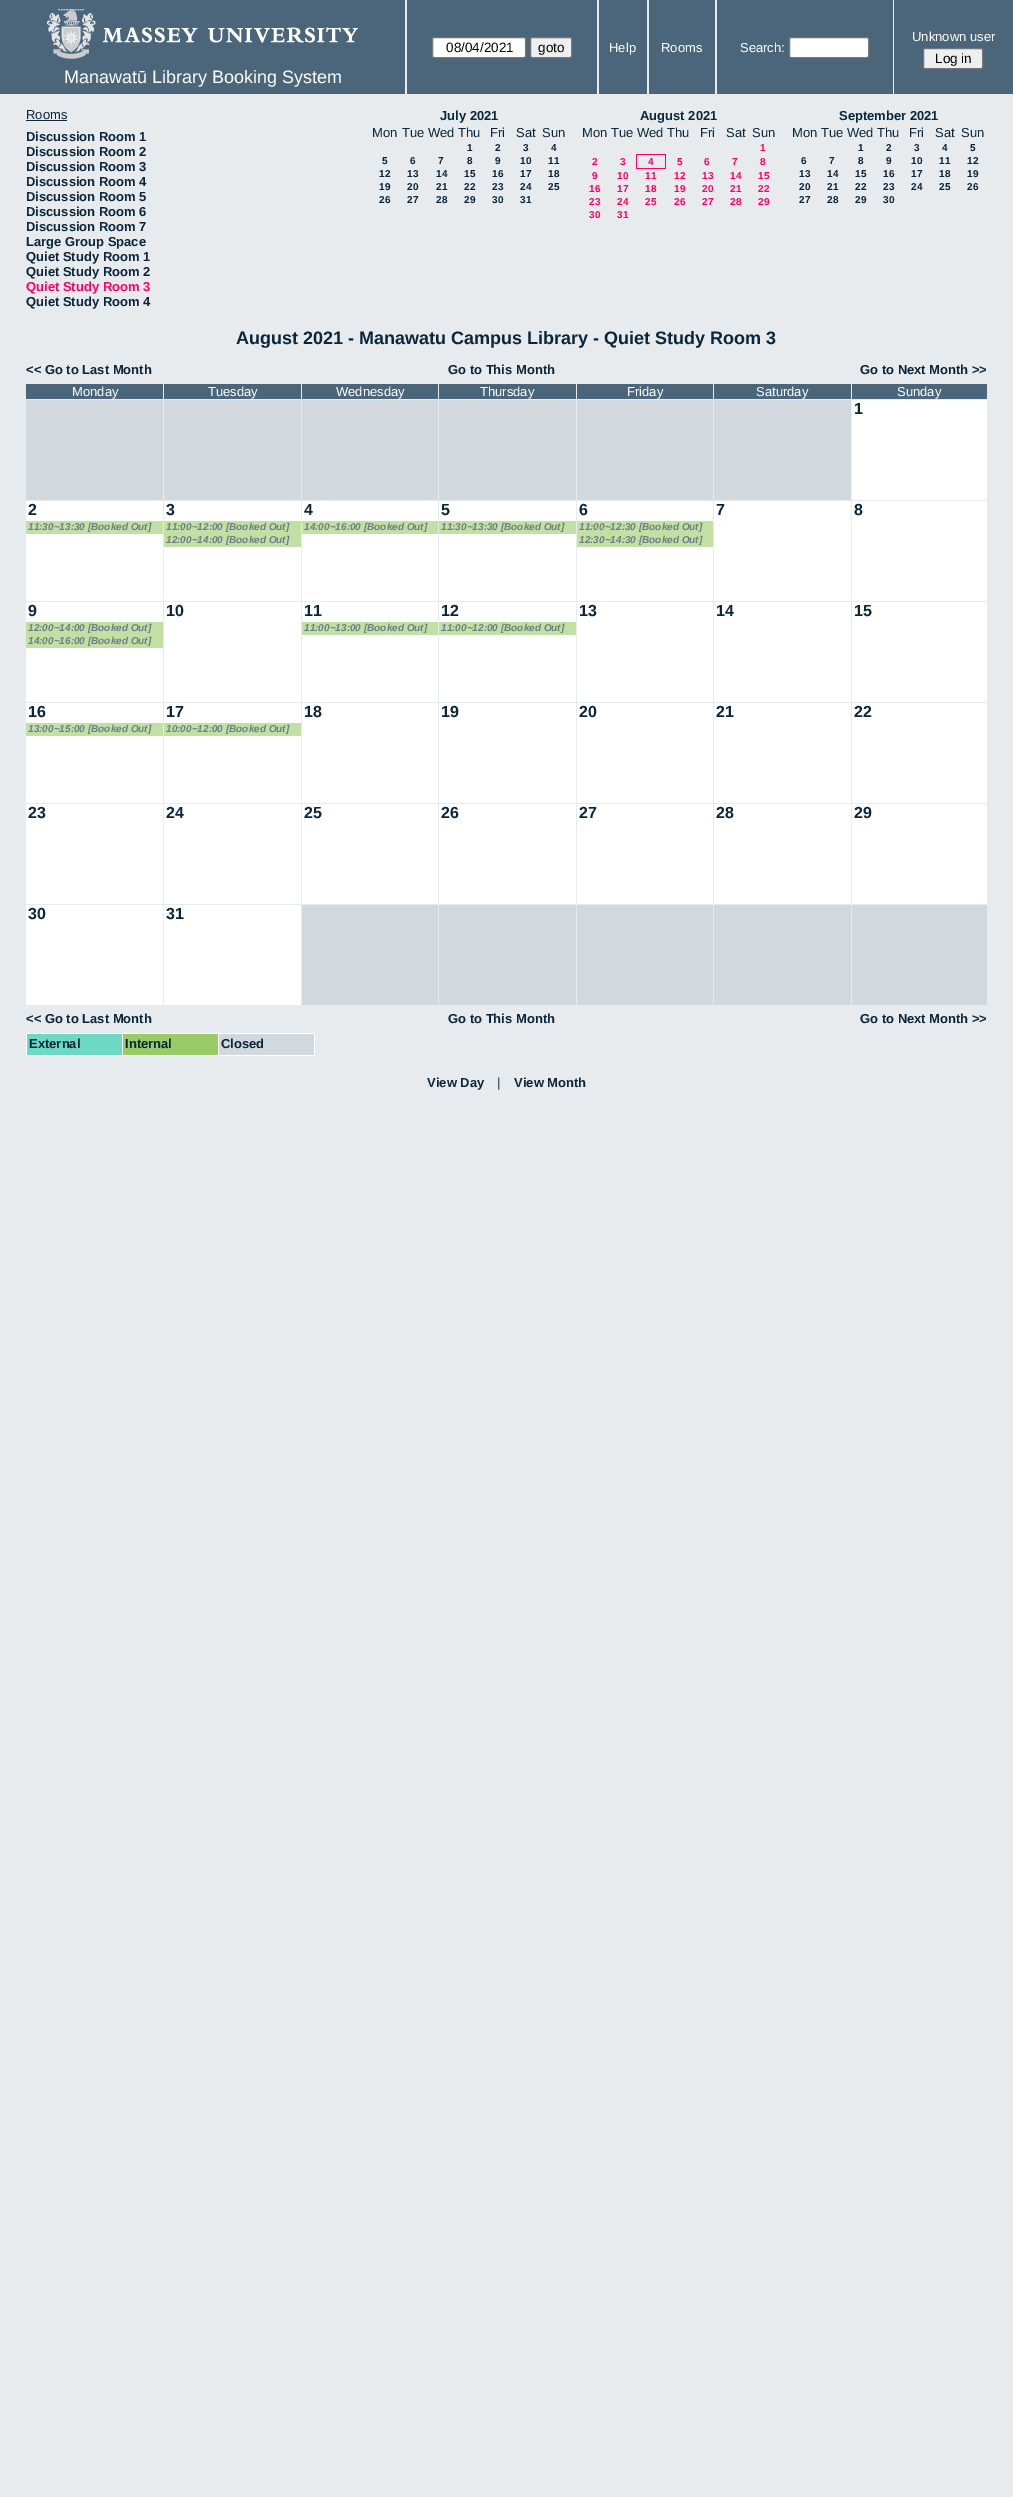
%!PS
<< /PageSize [1013 2497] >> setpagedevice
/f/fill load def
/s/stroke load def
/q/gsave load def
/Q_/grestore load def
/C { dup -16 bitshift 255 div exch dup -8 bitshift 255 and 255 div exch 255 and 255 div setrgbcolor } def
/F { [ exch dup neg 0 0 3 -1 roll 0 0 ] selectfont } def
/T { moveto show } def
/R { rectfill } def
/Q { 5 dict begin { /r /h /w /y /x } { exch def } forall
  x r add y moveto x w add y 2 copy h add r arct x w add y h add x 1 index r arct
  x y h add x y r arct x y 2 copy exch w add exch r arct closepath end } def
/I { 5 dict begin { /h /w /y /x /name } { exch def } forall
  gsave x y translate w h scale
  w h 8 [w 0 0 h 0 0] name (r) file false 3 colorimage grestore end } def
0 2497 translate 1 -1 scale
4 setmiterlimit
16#E7EBEE C
0 0 1013 2497 R
16#4B667B C
407 0 190 94 R
16#FFFFFF C
432.5 37.5 93 20 1.5 Q q f Q_
16#767676 C
s
/LiberationSans-Regular 13.5 F
16#000000 C
(08/04/2021) 446 52 T
16#EFEFEF C
530.5 37.5 41 20 1.5 Q q f Q_
16#767676 C
s
16#000000 C
(goto) 538 52 T
16#4B667B C
599 0 48 94 R
/LiberationSans-Regular 13 F
16#FFFFFF C
(Help) 609 52 T
16#4B667B C
649 0 66 94 R
16#FFFFFF C
(Rooms) 661 52 T
16#4B667B C
717 0 176 94 R
16#FFFFFF C
(Search:) 740 52 T
789.5 37.5 79 20 1.5 Q q f Q_
16#767676 C
s
16#4B667B C
894 0 119 94 R
16#FFFFFF C
(Unknown user) 912 41 T
16#EFEFEF C
923.5 48.5 59 20 1.5 Q q f Q_
16#767676 C
s
/LiberationSans-Regular 13.5 F
16#000000 C
(Log in) 935 63 T
16#4B667B C
0 0 405 94 R
(1.rgb) 47 9 311 50 I
/LiberationSans-Regular 18 F
16#FFFFFF C
(Manawatū Library Booking System) 64 83 T
/LiberationSans-Regular 13 F
16#0B263B C
(Rooms) 26 119 T
26 120 41 1 R
/LiberationSans-Bold 13 F
(Discussion Room 1) 26 141 T
(Discussion Room 2) 26 156 T
(Discussion Room 3) 26 171 T
(Discussion Room 4) 26 186 T
(Discussion Room 5) 26 201 T
(Discussion Room 6) 26 216 T
(Discussion Room 7) 26 231 T
(Large Group Space) 26 246 T
(Quiet Study Room 1) 26 261 T
(Quiet Study Room 2) 26 276 T
16#FF0066 C
(Quiet Study Room 3) 26 291 T
16#0B263B C
(Quiet Study Room 4) 26 306 T
(July 2021) 440 120 T
/LiberationSans-Regular 13 F
(Mon) 372 137 T
(Tue Wed Thu) 402 137 T
(Fri) 490 137 T
(Sat) 516 137 T
(Sun) 542 137 T
/LiberationSans-Bold 10 F
(1) 467 151 T
(2) 495 151 T
(3) 523 151 T
(4) 551 151 T
(5) 382 164 T
(6) 410 164 T
(7) 438 164 T
(8) 467 164 T
(9) 495 164 T
(10) 520 164 T
(11) 548 164 T
(12) 379 177 T
(13) 407 177 T
(14) 436 177 T
(15) 464 177 T
(16) 492 177 T
(17) 520 177 T
(18) 548 177 T
(19) 379 190 T
(20) 407 190 T
(21) 436 190 T
(22) 464 190 T
(23) 492 190 T
(24) 520 190 T
(25) 548 190 T
(26) 379 203 T
(27) 407 203 T
(28) 436 203 T
(29) 464 203 T
(30) 492 203 T
(31) 520 203 T
/LiberationSans-Bold 13 F
(August 2021) 640 120 T
/LiberationSans-Regular 13 F
(Mon) 582 137 T
(Tue Wed Thu) 611 137 T
(Fri) 700 137 T
(Sat) 726 137 T
(Sun) 752 137 T
/LiberationSans-Bold 10 F
16#FF0066 C
(1) 760 151 T
(2) 592 165 T
(3) 620 165 T
636 154 30 1 R
665 154 1 15 R
636 168 30 1 R
636 154 1 15 R
(4) 648 165 T
(5) 677 165 T
(6) 704 165 T
(7) 732 165 T
(8) 760 165 T
(9) 592 179 T
(10) 617 179 T
(11) 645 179 T
(12) 674 179 T
(13) 702 179 T
(14) 730 179 T
(15) 758 179 T
(16) 589 192 T
(17) 617 192 T
(18) 645 192 T
(19) 674 192 T
(20) 702 192 T
(21) 730 192 T
(22) 758 192 T
(23) 589 205 T
(24) 617 205 T
(25) 645 205 T
(26) 674 205 T
(27) 702 205 T
(28) 730 205 T
(29) 758 205 T
(30) 589 218 T
(31) 617 218 T
/LiberationSans-Bold 13 F
16#0B263B C
(September 2021) 839 120 T
/LiberationSans-Regular 13 F
(Mon) 792 137 T
(Tue Wed Thu) 821 137 T
(Fri) 909 137 T
(Sat) 935 137 T
(Sun) 961 137 T
/LiberationSans-Bold 10 F
(1) 858 151 T
(2) 886 151 T
(3) 914 151 T
(4) 942 151 T
(5) 970 151 T
(6) 801 164 T
(7) 829 164 T
(8) 858 164 T
(9) 886 164 T
(10) 911 164 T
(11) 939 164 T
(12) 967 164 T
(13) 799 177 T
(14) 827 177 T
(15) 855 177 T
(16) 883 177 T
(17) 911 177 T
(18) 939 177 T
(19) 967 177 T
(20) 799 190 T
(21) 827 190 T
(22) 855 190 T
(23) 883 190 T
(24) 911 190 T
(25) 939 190 T
(26) 967 190 T
(27) 799 203 T
(28) 827 203 T
(29) 855 203 T
(30) 883 203 T
/LiberationSans-Bold 18 F
(August 2021 - Manawatu Campus Library - Quiet Study Room 3) 236 344 T
/LiberationSans-Bold 13 F
(<< Go to Last Month) 26 374 T
(Go to This Month) 448 374 T
(Go to Next Month >>) 860 374 T
16#4B667B C
26 384 137 15 R
/LiberationSans-Regular 13 F
16#FFFFFF C
(Monday) 72 396 T
16#4B667B C
164 384 137 15 R
16#FFFFFF C
(Tuesday) 208 396 T
16#4B667B C
302 384 136 15 R
16#FFFFFF C
(Wednesday) 336 396 T
16#4B667B C
439 384 137 15 R
16#FFFFFF C
(Thursday) 480 396 T
16#4B667B C
577 384 136 15 R
16#FFFFFF C
(Friday) 627 396 T
16#4B667B C
714 384 137 15 R
16#FFFFFF C
(Saturday) 756 396 T
16#4B667B C
852 384 135 15 R
16#FFFFFF C
(Sunday) 897 396 T
16#D1D9DE C
26 400 137 100 R
164 400 137 100 R
302 400 136 100 R
439 400 137 100 R
577 400 136 100 R
714 400 137 100 R
16#FFFFFF C
852 400 135 100 R
/LiberationSans-Bold 16 F
16#0B263B C
(1) 854 414 T
16#FFFFFF C
26 501 137 100 R
16#0B263B C
(2) 28 515 T
16#C2E0A3 C
26 521 137 13 R
/LiberationSans-BoldItalic 10 F
16#6D7D89 C
(11:30~13:30 [Booked Out]) 28 530 T
16#FFFFFF C
164 501 137 100 R
/LiberationSans-Bold 16 F
16#0B263B C
(3) 166 515 T
16#C2E0A3 C
164 521 137 26 R
/LiberationSans-BoldItalic 10 F
16#6D7D89 C
(11:00~12:00 [Booked Out]) 166 530 T
(12:00~14:00 [Booked Out]) 166 543 T
16#FFFFFF C
302 501 136 100 R
/LiberationSans-Bold 16 F
16#0B263B C
(4) 304 515 T
16#C2E0A3 C
302 521 136 13 R
/LiberationSans-BoldItalic 10 F
16#6D7D89 C
(14:00~16:00 [Booked Out]) 304 530 T
16#FFFFFF C
439 501 137 100 R
/LiberationSans-Bold 16 F
16#0B263B C
(5) 441 515 T
16#C2E0A3 C
439 521 137 13 R
/LiberationSans-BoldItalic 10 F
16#6D7D89 C
(11:30~13:30 [Booked Out]) 441 530 T
16#FFFFFF C
577 501 136 100 R
/LiberationSans-Bold 16 F
16#0B263B C
(6) 579 515 T
16#C2E0A3 C
577 521 136 26 R
/LiberationSans-BoldItalic 10 F
16#6D7D89 C
(11:00~12:30 [Booked Out]) 579 530 T
(12:30~14:30 [Booked Out]) 579 543 T
16#FFFFFF C
714 501 137 100 R
/LiberationSans-Bold 16 F
16#0B263B C
(7) 716 515 T
16#FFFFFF C
852 501 135 100 R
16#0B263B C
(8) 854 515 T
16#FFFFFF C
26 602 137 100 R
16#0B263B C
(9) 28 616 T
16#C2E0A3 C
26 622 137 26 R
/LiberationSans-BoldItalic 10 F
16#6D7D89 C
(12:00~14:00 [Booked Out]) 28 631 T
(14:00~16:00 [Booked Out]) 28 644 T
16#FFFFFF C
164 602 137 100 R
/LiberationSans-Bold 16 F
16#0B263B C
(10) 166 616 T
16#FFFFFF C
302 602 136 100 R
16#0B263B C
(11) 304 616 T
16#C2E0A3 C
302 622 136 13 R
/LiberationSans-BoldItalic 10 F
16#6D7D89 C
(11:00~13:00 [Booked Out]) 304 631 T
16#FFFFFF C
439 602 137 100 R
/LiberationSans-Bold 16 F
16#0B263B C
(12) 441 616 T
16#C2E0A3 C
439 622 137 13 R
/LiberationSans-BoldItalic 10 F
16#6D7D89 C
(11:00~12:00 [Booked Out]) 441 631 T
16#FFFFFF C
577 602 136 100 R
/LiberationSans-Bold 16 F
16#0B263B C
(13) 579 616 T
16#FFFFFF C
714 602 137 100 R
16#0B263B C
(14) 716 616 T
16#FFFFFF C
852 602 135 100 R
16#0B263B C
(15) 854 616 T
16#FFFFFF C
26 703 137 100 R
16#0B263B C
(16) 28 717 T
16#C2E0A3 C
26 723 137 13 R
/LiberationSans-BoldItalic 10 F
16#6D7D89 C
(13:00~15:00 [Booked Out]) 28 732 T
16#FFFFFF C
164 703 137 100 R
/LiberationSans-Bold 16 F
16#0B263B C
(17) 166 717 T
16#C2E0A3 C
164 723 137 13 R
/LiberationSans-BoldItalic 10 F
16#6D7D89 C
(10:00~12:00 [Booked Out]) 166 732 T
16#FFFFFF C
302 703 136 100 R
/LiberationSans-Bold 16 F
16#0B263B C
(18) 304 717 T
16#FFFFFF C
439 703 137 100 R
16#0B263B C
(19) 441 717 T
16#FFFFFF C
577 703 136 100 R
16#0B263B C
(20) 579 717 T
16#FFFFFF C
714 703 137 100 R
16#0B263B C
(21) 716 717 T
16#FFFFFF C
852 703 135 100 R
16#0B263B C
(22) 854 717 T
16#FFFFFF C
26 804 137 100 R
16#0B263B C
(23) 28 818 T
16#FFFFFF C
164 804 137 100 R
16#0B263B C
(24) 166 818 T
16#FFFFFF C
302 804 136 100 R
16#0B263B C
(25) 304 818 T
16#FFFFFF C
439 804 137 100 R
16#0B263B C
(26) 441 818 T
16#FFFFFF C
577 804 136 100 R
16#0B263B C
(27) 579 818 T
16#FFFFFF C
714 804 137 100 R
16#0B263B C
(28) 716 818 T
16#FFFFFF C
852 804 135 100 R
16#0B263B C
(29) 854 818 T
16#FFFFFF C
26 905 137 100 R
16#0B263B C
(30) 28 919 T
16#FFFFFF C
164 905 137 100 R
16#0B263B C
(31) 166 919 T
16#D1D9DE C
302 905 136 100 R
439 905 137 100 R
577 905 136 100 R
714 905 137 100 R
852 905 135 100 R
/LiberationSans-Bold 13 F
16#0B263B C
(<< Go to Last Month) 26 1023 T
(Go to This Month) 448 1023 T
(Go to Next Month >>) 860 1023 T
16#6DD9C4 C
27 1034 95 21 R
16#FFFFFF C
218 1033 97 1 R
314 1033 1 23 R
218 1055 97 1 R
218 1033 1 23 R
122 1033 97 1 R
122 1055 97 1 R
122 1033 1 23 R
26 1033 97 1 R
26 1055 97 1 R
26 1033 1 23 R
16#0B263B C
(External) 29 1048 T
16#99CC66 C
123 1034 95 21 R
16#0B263B C
(Internal) 125 1048 T
16#D1D9DE C
219 1034 95 21 R
16#0B263B C
(Closed) 221 1048 T
(View Day) 427 1087 T
/LiberationSans-Regular 13 F
(|) 497 1087 T
/LiberationSans-Bold 13 F
(View Month) 514 1087 T
showpage
